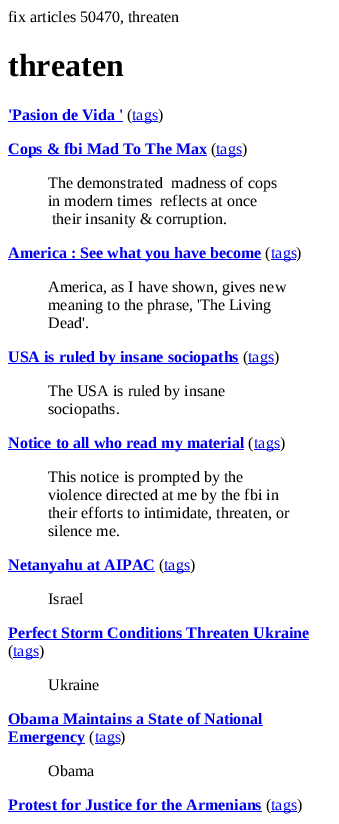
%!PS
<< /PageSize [339 824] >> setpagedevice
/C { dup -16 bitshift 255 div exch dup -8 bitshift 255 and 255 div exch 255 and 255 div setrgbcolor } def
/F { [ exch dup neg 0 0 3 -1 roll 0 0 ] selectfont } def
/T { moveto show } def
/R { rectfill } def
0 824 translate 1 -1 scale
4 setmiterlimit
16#FFFFFF C
0 0 339 824 R
/LiberationSerif-Regular 16 F
16#000000 C
(fix articles 50470, threaten) 8 22 T
/LiberationSerif-Bold 32 F
(threaten) 8 76 T
/LiberationSerif-Bold 16 F
16#0000EE C
('Pasion de Vida ') 8 120 T
8 121 115 1 R
/LiberationSerif-Regular 16 F
16#000000 C
(\() 127 120 T
16#0000EE C
132 121 26 1 R
(tags) 132 120 T
16#000000 C
(\)) 158 120 T
16#0000EE C
8 155 199 1 R
/LiberationSerif-Bold 16 F
(Cops & fbi Mad To The Max) 8 154 T
/LiberationSerif-Regular 16 F
16#000000 C
(\() 211 154 T
16#0000EE C
216 155 26 1 R
(tags) 216 154 T
16#000000 C
(\)) 242 154 T
(The demonstrated  madness of cops) 48 188 T
(in modern times  reflects at once) 48 206 T
(their insanity & corruption.) 52 224 T
16#0000EE C
8 259 253 1 R
/LiberationSerif-Bold 16 F
(America : See what you have become) 8 258 T
/LiberationSerif-Regular 16 F
16#000000 C
(\() 265 258 T
16#0000EE C
271 259 25 1 R
(tags) 271 258 T
16#000000 C
(\)) 296 258 T
(America, as I have shown, gives new) 48 292 T
(meaning to the phrase, 'The Living) 48 310 T
(Dead'.) 48 328 T
16#0000EE C
8 363 231 1 R
/LiberationSerif-Bold 16 F
(USA is ruled by insane sociopaths) 8 362 T
/LiberationSerif-Regular 16 F
16#000000 C
(\() 243 362 T
16#0000EE C
248 363 26 1 R
(tags) 248 362 T
16#000000 C
(\)) 274 362 T
(The USA is ruled by insane) 48 396 T
(sociopaths.) 48 414 T
16#0000EE C
8 449 236 1 R
/LiberationSerif-Bold 16 F
(Notice to all who read my material) 8 448 T
/LiberationSerif-Regular 16 F
16#000000 C
(\() 248 448 T
16#0000EE C
254 449 26 1 R
(tags) 254 448 T
16#000000 C
(\)) 280 448 T
(This notice is prompted by the) 48 482 T
(violence directed at me by the fbi in) 48 500 T
(their efforts to intimidate, threaten, or) 48 518 T
(silence me.) 48 536 T
16#0000EE C
8 571 147 1 R
/LiberationSerif-Bold 16 F
(Netanyahu at AIPAC) 8 570 T
/LiberationSerif-Regular 16 F
16#000000 C
(\() 159 570 T
16#0000EE C
164 571 26 1 R
(tags) 164 570 T
16#000000 C
(\)) 190 570 T
(Israel) 48 604 T
/LiberationSerif-Bold 16 F
16#0000EE C
(Perfect Storm Conditions Threaten Ukraine) 8 638 T
8 639 301 1 R
/LiberationSerif-Regular 16 F
16#000000 C
(\() 8 656 T
16#0000EE C
13 657 26 1 R
(tags) 13 656 T
16#000000 C
(\)) 39 656 T
(Ukraine) 48 690 T
/LiberationSerif-Bold 16 F
16#0000EE C
(Obama Maintains a State of National) 8 724 T
8 725 255 1 R
8 743 77 1 R
(Emergency) 8 742 T
/LiberationSerif-Regular 16 F
16#000000 C
(\() 89 742 T
16#0000EE C
95 743 25 1 R
(tags) 95 742 T
16#000000 C
(\)) 120 742 T
(Obama) 48 776 T
/LiberationSerif-Bold 16 F
16#0000EE C
(Protest for Justice for the Armenians) 8 810 T
8 811 254 1 R
/LiberationSerif-Regular 16 F
16#000000 C
(\() 266 810 T
16#0000EE C
271 811 26 1 R
(tags) 271 810 T
16#000000 C
(\)) 297 810 T
showpage
